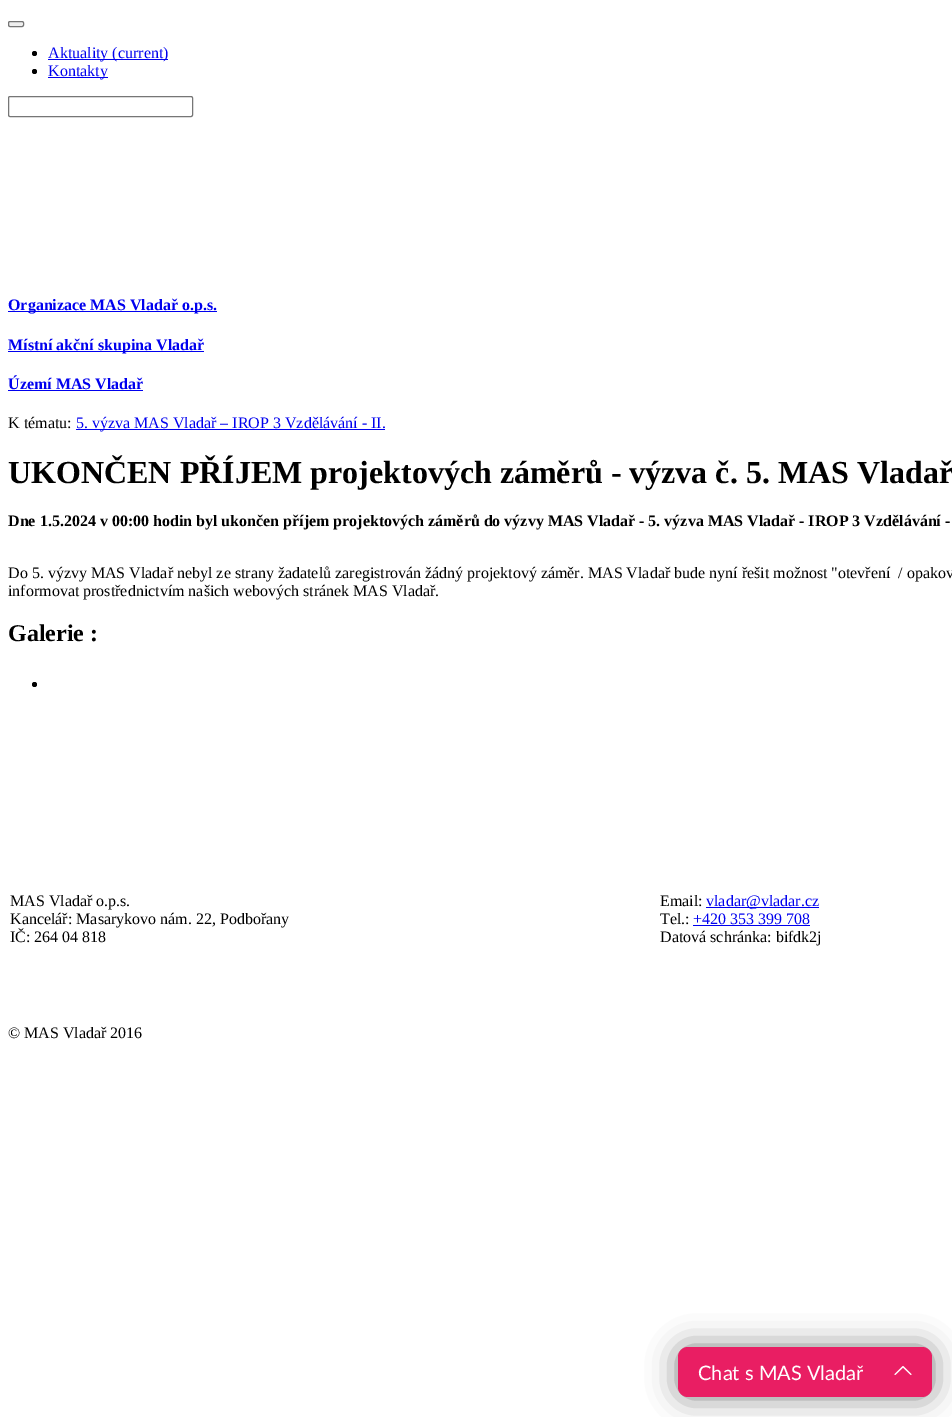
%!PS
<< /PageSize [952 1417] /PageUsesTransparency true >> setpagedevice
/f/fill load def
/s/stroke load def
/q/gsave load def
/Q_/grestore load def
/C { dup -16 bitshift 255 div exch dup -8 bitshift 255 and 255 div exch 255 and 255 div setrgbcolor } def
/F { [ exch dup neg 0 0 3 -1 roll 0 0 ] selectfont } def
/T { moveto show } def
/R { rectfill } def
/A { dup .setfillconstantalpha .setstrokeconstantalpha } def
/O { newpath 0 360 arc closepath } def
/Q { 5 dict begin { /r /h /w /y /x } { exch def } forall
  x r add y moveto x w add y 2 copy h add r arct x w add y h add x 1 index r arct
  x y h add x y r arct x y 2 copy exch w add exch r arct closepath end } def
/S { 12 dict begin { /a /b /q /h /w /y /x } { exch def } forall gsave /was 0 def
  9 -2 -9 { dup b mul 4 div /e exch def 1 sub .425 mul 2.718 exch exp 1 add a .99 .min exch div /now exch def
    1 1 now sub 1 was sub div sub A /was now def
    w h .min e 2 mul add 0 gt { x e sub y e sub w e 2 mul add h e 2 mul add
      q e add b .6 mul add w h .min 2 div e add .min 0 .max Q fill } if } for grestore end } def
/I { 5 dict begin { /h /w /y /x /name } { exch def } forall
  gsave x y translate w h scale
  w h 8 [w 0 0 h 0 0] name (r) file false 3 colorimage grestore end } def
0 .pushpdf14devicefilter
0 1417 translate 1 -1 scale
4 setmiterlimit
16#FFFFFF C
0 0 952 1417 R
16#EFEFEF C
8.5 21.5 15 5 1.5 Q q f Q_
16#767676 C
s
16#000000 C
34.5 53.5 2.5 O f
16#0000EE C
48 59 120 1 R
/LiberationSerif-Regular 16 F
(Aktuality \(current\)) 48 58 T
16#000000 C
34.5 71.5 2.5 O f
16#0000EE C
48 77 60 1 R
(Kontakty) 48 76 T
16#767676 C
8.5 96.5 184 20 1.5 Q s
16#0000EE C
8 311 209 1 R
/LiberationSerif-Bold 16 F
(Organizace MAS Vladař o.p.s.) 8 310 T
8 351 196 1 R
(Místní akční skupina Vladař) 8 350 T
(Území MAS Vladař) 8 389 T
8 390 135 1 R
/LiberationSerif-Regular 16 F
16#000000 C
(K tématu:) 8 428 T
16#0000EE C
76 429 309 1 R
(5. výzva MAS Vladař – IROP 3 Vzdělávání - II.) 76 428 T
/LiberationSerif-Bold 32 F
16#000000 C
(UKONČEN PŘÍJEM projektových záměrů - výzva č. 5. MAS Vladař) 8 483 T
/LiberationSerif-Bold 16 F
(Dne 1.5.2024 v 00:00 hodin byl ukončen příjem projektových záměrů do výzvy MAS Vladař - 5. výzva MAS Vladař - IROP 3 Vzdělávání -) 8 526 T
/LiberationSerif-Regular 16 F
(Do 5. výzvy MAS Vladař nebyl ze strany žadatelů zaregistrován žádný projektový záměr. MAS Vladař bude nyní řešit možnost "otevření  / opakov) 8 578 T
(informovat prostřednictvím našich webových stránek MAS Vladař.) 8 596 T
/LiberationSerif-Bold 24 F
(Galerie :) 8 641 T
34.5 684.5 2.5 O f
/LiberationSerif-Regular 16 F
(MAS Vladař o.p.s.) 10 906 T
(Kancelář: Masarykovo nám. 22, Podbořany) 10 924 T
(IČ: 264 04 818) 10 942 T
(Email:) 660 906 T
16#0000EE C
706 907 113 1 R
(vladar@vladar.cz) 706 906 T
16#000000 C
(Tel.:) 660 924 T
16#0000EE C
(+420 353 399 708) 693 924 T
693 925 117 1 R
16#000000 C
(Datová schránka: bifdk2j) 660 942 T
(© MAS Vladař 2016) 8 1038 T
678 1347 254 50 10 15 .5 S
16#E91E63 C
678 1347 254 50 10 Q f
/Lato-Regular 20 F
16#FFFFFF C
(Chat s MAS Vladař) 698 1380 T
(1.rgb) 894 1366 18 9 I
.poppdf14devicefilter showpage
